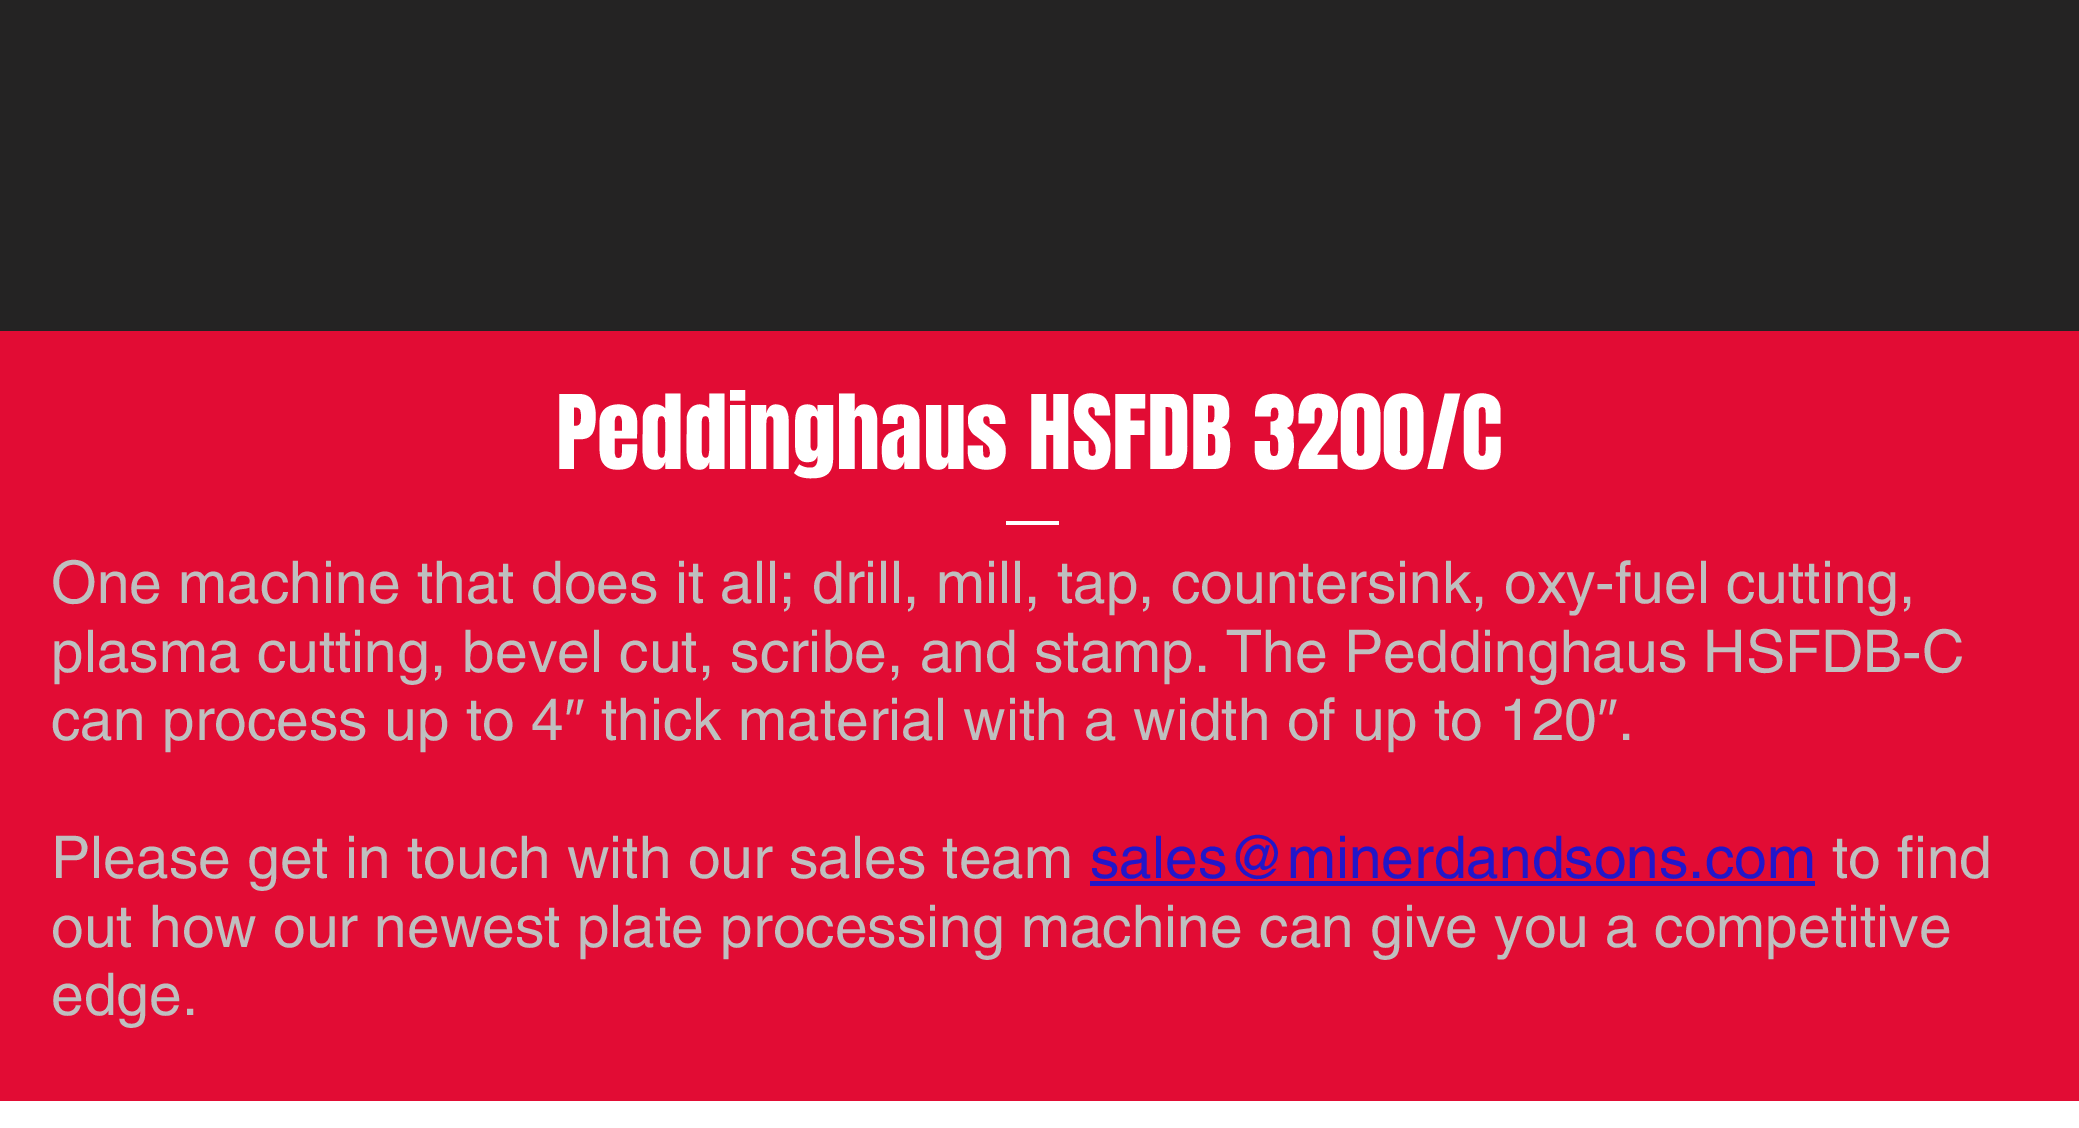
%!PS
<< /PageSize [2079 1128] >> setpagedevice
/C { dup -16 bitshift 255 div exch dup -8 bitshift 255 and 255 div exch 255 and 255 div setrgbcolor } def
/F { [ exch dup neg 0 0 3 -1 roll 0 0 ] selectfont } def
/T { moveto show } def
/R { rectfill } def
0 1128 translate 1 -1 scale
4 setmiterlimit
16#FFFFFF C
0 0 2079 1128 R
16#242323 C
0 0 2079 331 R
16#E20C34 C
0 331 2079 770 R
/Anton-Regular 87.5 F
16#FFFFFF C
(Peddinghaus HSFDB 3200/C) 556 469 T
1006 521 53 4 R
/helvetica-Regular 58.75 F
16#BFBFBF C
(One machine that does it all; drill, mill, tap, countersink, oxy-fuel cutting,) 51 603 T
(plasma cutting, bevel cut, scribe, and stamp. The Peddinghaus HSFDB-C) 51 672 T
(can process up to 4) 51 740 T
/LiberationSans-Regular 58.75 F
(″) 564 740 T
/helvetica-Regular 58.75 F
(thick material with a width of up to 120) 601 740 T
/LiberationSans-Regular 58.75 F
(″) 1597 740 T
/helvetica-Regular 58.75 F
(.) 1618 740 T
(Please get in touch with our sales team) 51 878 T
16#2216C9 C
(sales@minerdandsons.com) 1090 878 T
1090 881 725 5 R
16#BFBFBF C
(to find) 1832 878 T
(out how our newest plate processing machine can give you a competitive) 51 947 T
(edge.) 51 1015 T
showpage
